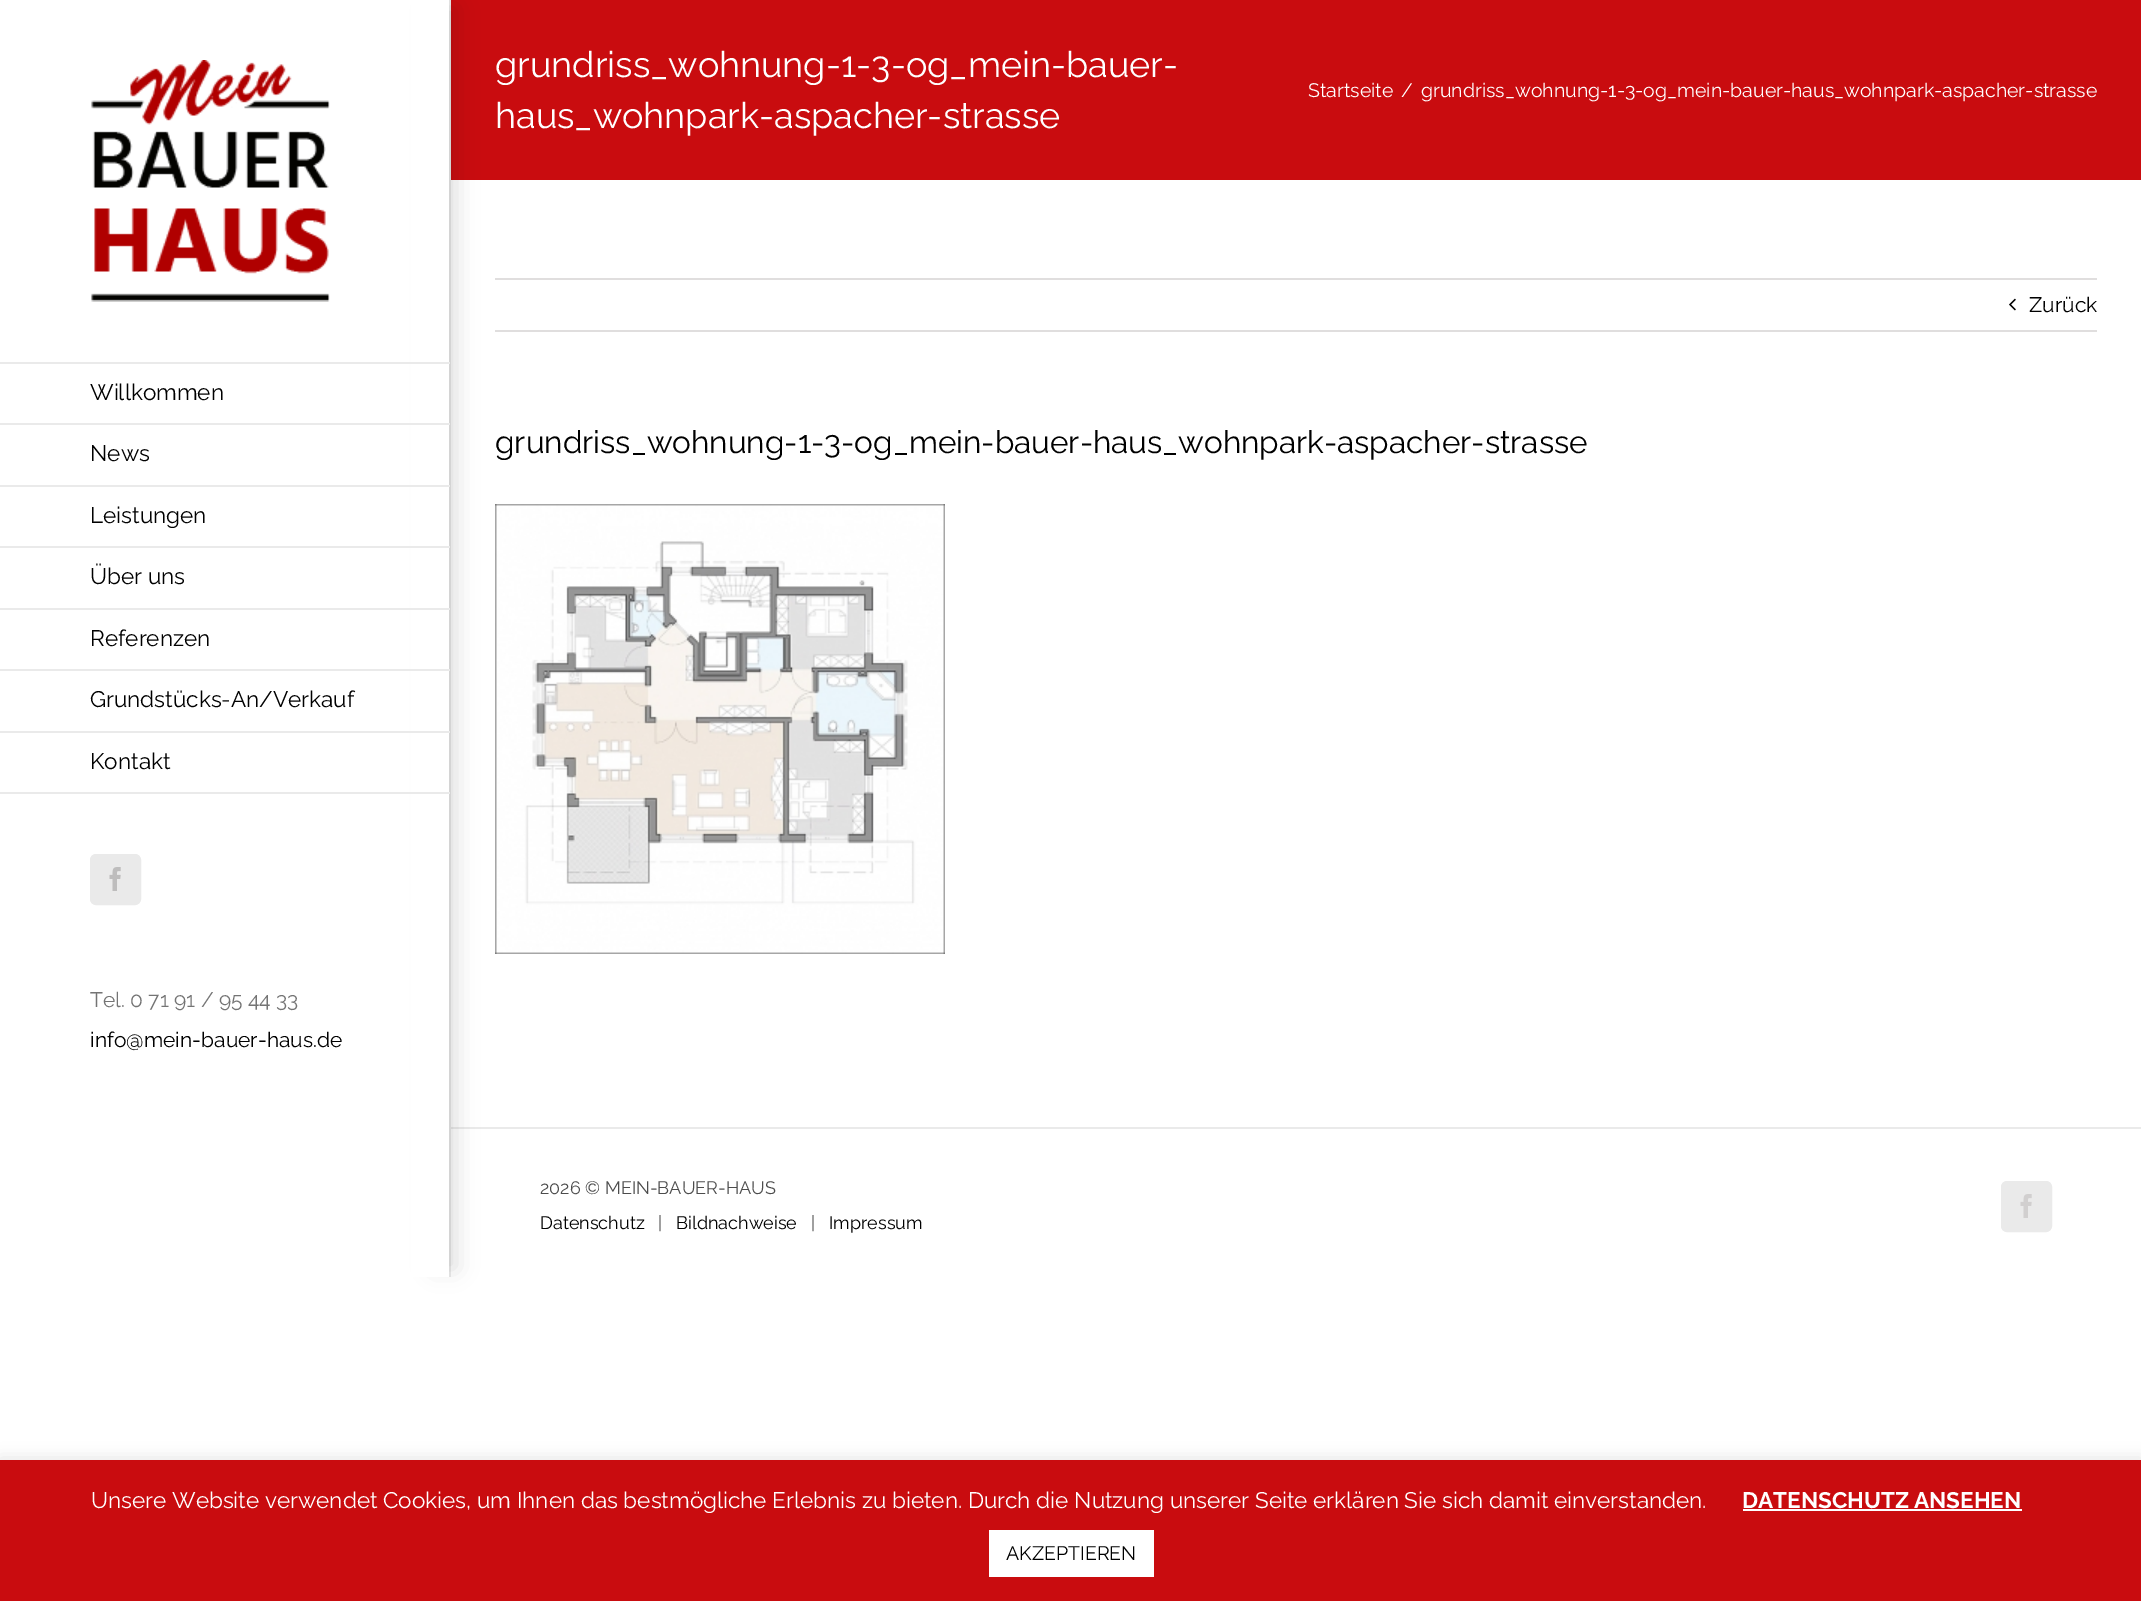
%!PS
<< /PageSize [2141 1601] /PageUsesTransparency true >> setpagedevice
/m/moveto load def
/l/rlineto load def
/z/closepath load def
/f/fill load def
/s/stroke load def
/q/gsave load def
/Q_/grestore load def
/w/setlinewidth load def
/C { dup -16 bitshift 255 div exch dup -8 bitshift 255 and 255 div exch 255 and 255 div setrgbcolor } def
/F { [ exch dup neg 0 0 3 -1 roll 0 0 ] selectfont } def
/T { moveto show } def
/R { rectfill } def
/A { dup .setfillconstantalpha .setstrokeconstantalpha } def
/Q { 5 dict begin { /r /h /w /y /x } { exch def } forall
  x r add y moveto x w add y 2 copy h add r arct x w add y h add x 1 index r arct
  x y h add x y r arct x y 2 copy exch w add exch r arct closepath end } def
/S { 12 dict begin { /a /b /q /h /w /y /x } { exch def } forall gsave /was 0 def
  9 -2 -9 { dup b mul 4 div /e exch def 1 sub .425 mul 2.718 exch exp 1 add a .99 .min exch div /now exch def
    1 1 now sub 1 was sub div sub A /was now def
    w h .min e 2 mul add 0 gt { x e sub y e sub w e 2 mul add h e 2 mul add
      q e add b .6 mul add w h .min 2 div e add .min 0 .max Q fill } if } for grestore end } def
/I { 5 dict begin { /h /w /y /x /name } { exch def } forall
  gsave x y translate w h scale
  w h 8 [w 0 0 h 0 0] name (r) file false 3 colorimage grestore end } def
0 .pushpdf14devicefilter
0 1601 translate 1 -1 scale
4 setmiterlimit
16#FFFFFF C
0 0 2141 1601 R
16#C90C0F C
451 0 1690 179 R
450 179 1691 1 R
/Raleway-Regular 36 F
16#FFFFFF C
(grundriss_wohnung-1-3-og_mein-bauer-) 495 77 T
(haus_wohnpark-aspacher-strasse) 495 128 T
/Raleway-Regular 19.5 F
(Startseite) 1308 97 T
(/) 1401 97 T
(grundriss_wohnung-1-3-og_mein-bauer-haus_wohnpark-aspacher-strasse) 1421 97 T
(1.rgb) 91 60 239 242 I
16#EAEAEA C
450 1127 1691 2 R
449 0 2 1277 R
q
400 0 m 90 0 l 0 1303 l -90 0 l z 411 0 m 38 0 l 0 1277 l -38 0 l z eoclip newpath
16#000000 C
434 8 22 1261 0 11 .14 S
Q_
0 362 450 2 R
0 423 450 2 R
/Raleway-Regular 22.5 F
16#000000 C
(Willkommen) 90 400 T
16#EAEAEA C
0 485 450 2 R
16#000000 C
(News) 90 461 T
16#EAEAEA C
0 546 450 2 R
16#000000 C
(Leistungen) 90 523 T
16#EAEAEA C
0 608 450 2 R
16#000000 C
(Über uns) 90 584 T
16#EAEAEA C
0 669 450 2 R
16#000000 C
(Referenzen) 90 646 T
16#EAEAEA C
0 731 450 2 R
16#000000 C
(Grundstücks-An/Verkauf) 90 707 T
16#EAEAEA C
0 792 450 2 R
16#000000 C
(Kontakt) 90 769 T
16#EAEAEA C
91 855 49 49 5 Q q f Q_
2 w
s
(2.rgb) 109 867 12 24 I
/Raleway-Regular 21 F
16#747474 C
(Tel. 0 71 91 / 95 44 33) 90 1007 T
16#000000 C
(info@mein-bauer-haus.de) 90 1047 T
16#E0DEDE C
495 278 1602 2 R
495 330 1602 2 R
(3.rgb) 2009 298 7 13 I
16#000000 C
(Zurück) 2029 312 T
/Raleway-Regular 31.5 F
(grundriss_wohnung-1-3-og_mein-bauer-haus_wohnpark-aspacher-strasse) 495 453 T
(4.rgb) 495 504 450 450 I
/Raleway-Regular 18 F
16#4C4C4C C
(2026 © MEIN-BAUER-HAUS) 540 1194 T
16#000000 C
(Datenschutz) 540 1229 T
16#4C4C4C C
(|) 658 1229 T
16#000000 C
(Bildnachweise) 676 1229 T
16#4C4C4C C
(|) 811 1229 T
16#000000 C
(Impressum) 829 1229 T
16#EAEAEA C
2002 1182 49 49 5 Q q f Q_
s
(5.rgb) 2020 1194 12 24 I
16#ACABAB C
0 1458 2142 143 0 7.5 .3 S
16#C90C0F C
0 1460 2141 141 R
/Raleway-Regular 22.5 F
16#FFFFFF C
(Unsere Website verwendet Cookies, um Ihnen das bestmögliche Erlebnis zu bieten. Durch die Nutzung unserer Seite erklären Sie sich damit einverstanden.) 91 1508 T
/Raleway-Bold 22.5 F
(DATENSCHUTZ ANSEHEN) 1742 1508 T
1743 1509 279 2 R
989 1530 165 47 R
/Raleway-Regular 19.5 F
16#000000 C
(AKZEPTIEREN) 1006 1560 T
.poppdf14devicefilter showpage
